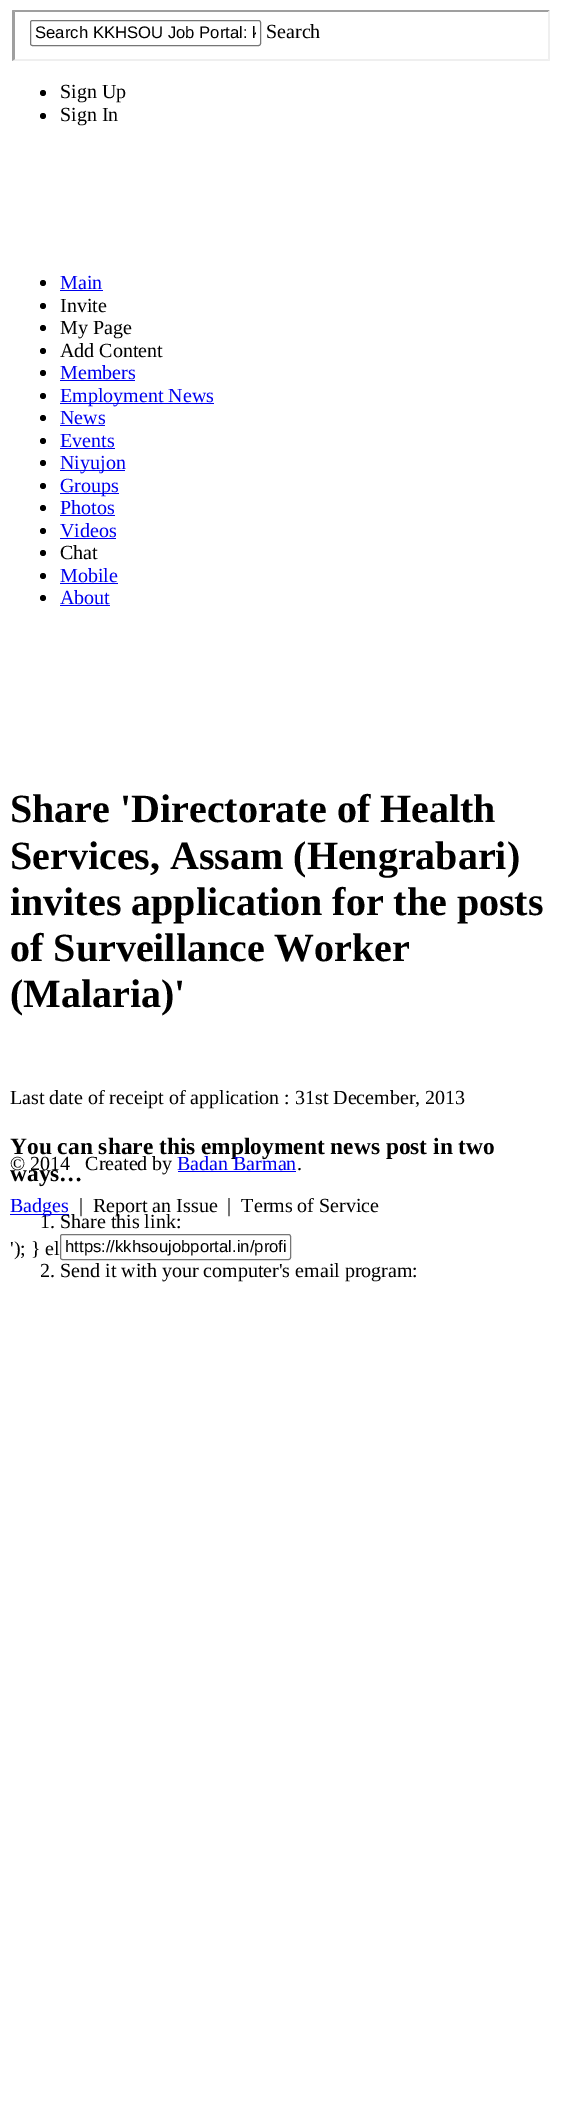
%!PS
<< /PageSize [562 2107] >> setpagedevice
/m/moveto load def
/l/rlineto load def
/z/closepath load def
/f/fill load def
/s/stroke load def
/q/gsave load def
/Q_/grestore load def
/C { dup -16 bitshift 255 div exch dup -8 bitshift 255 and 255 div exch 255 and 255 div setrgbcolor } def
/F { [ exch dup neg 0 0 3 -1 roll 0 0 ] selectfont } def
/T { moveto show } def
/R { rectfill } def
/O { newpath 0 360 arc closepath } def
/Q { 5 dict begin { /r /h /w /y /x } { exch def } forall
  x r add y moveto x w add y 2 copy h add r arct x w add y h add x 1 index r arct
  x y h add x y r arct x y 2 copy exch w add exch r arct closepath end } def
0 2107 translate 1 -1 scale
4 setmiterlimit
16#FFFFFF C
0 0 562 2107 R
16#9F9F9F C
12 10 m 538 0 l -2 2 l -533 0 l z f
16#EFEFEF C
550 10 m 0 51 l -2 -2 l 0 -47 l z f
550 61 m -538 0 l 3 -2 l 533 0 l z f
16#9F9F9F C
12 61 m 0 -51 l 3 2 l 0 47 l z f
16#767676 C
30.5 20.5 230 25 2 Q s
q
35 24 221 19 rectclip
/LiberationSans-Regular 16.7 F
16#000000 C
(Search KKHSOU Job Portal: k) 35 38 T
Q_
/LiberationSerif-Regular 20 F
16#000000 C
(Search) 266 38 T
43 93 3 O f
(Sign Up) 60 98 T
43 116 3 O f
(Sign In) 60 121 T
43 283 3 O f
16#0000EE C
(Main) 60 289 T
60 290 43 1 R
16#000000 C
43 306 3 O f
(Invite) 60 312 T
43 328 3 O f
(My Page) 60 334 T
43 351 3 O f
(Add Content) 60 357 T
43 373 3 O f
16#0000EE C
(Members) 60 379 T
60 380 75 1 R
16#000000 C
43 396 3 O f
16#0000EE C
60 403 154 1 R
(Employment News) 60 402 T
16#000000 C
43 418 3 O f
16#0000EE C
(News) 60 424 T
60 425 45 1 R
16#000000 C
43 441 3 O f
16#0000EE C
(Events) 60 447 T
60 448 55 1 R
16#000000 C
43 463 3 O f
16#0000EE C
60 470 65 1 R
(Niyujon) 60 469 T
16#000000 C
43 486 3 O f
16#0000EE C
60 493 59 1 R
(Groups) 60 492 T
16#000000 C
43 508 3 O f
16#0000EE C
(Photos) 60 514 T
60 515 55 1 R
16#000000 C
43 531 3 O f
16#0000EE C
(Videos) 60 537 T
60 538 56 1 R
16#000000 C
43 553 3 O f
(Chat) 60 559 T
43 576 3 O f
16#0000EE C
(Mobile) 60 582 T
60 583 58 1 R
16#000000 C
43 598 3 O f
16#0000EE C
(About) 60 604 T
60 605 50 1 R
/LiberationSerif-Bold 40 F
16#000000 C
(Share 'Directorate of Health) 10 822 T
(Services, Assam \(Hengrabari\)) 10 869 T
(invites application for the posts) 10 915 T
(of Surveillance Worker) 10 961 T
(\(Malaria\)') 10 1007 T
/LiberationSerif-Regular 20 F
(Last date of receipt of application : 31st December, 2013) 10 1104 T
/LiberationSerif-Bold 23.4 F
(You can share this employment news post in two) 10 1154 T
(ways…) 10 1181 T
16#0000EE C
10 1214 59 1 R
/LiberationSerif-Regular 20 F
16#000000 C
(1. Share this link:) 40 1228 T
16#767676 C
60.5 1234.5 230 25 2 Q s
/LiberationSans-Regular 16.7 F
16#000000 C
(https://kkhsoujobportal.in/profi) 65 1252 T
/LiberationSerif-Regular 20 F
(2. Send it with your computer's email program:) 40 1277 T
(© 2014   Created by) 10 1170 T
16#0000EE C
(Badan Barman) 177 1170 T
178 1171 118 1 R
16#000000 C
(.) 297 1170 T
16#0000EE C
(Badges) 10 1212 T
16#000000 C
(|  Report an Issue  |  Terms of Service) 79 1212 T
('\); } el) 10 1255 T
showpage
